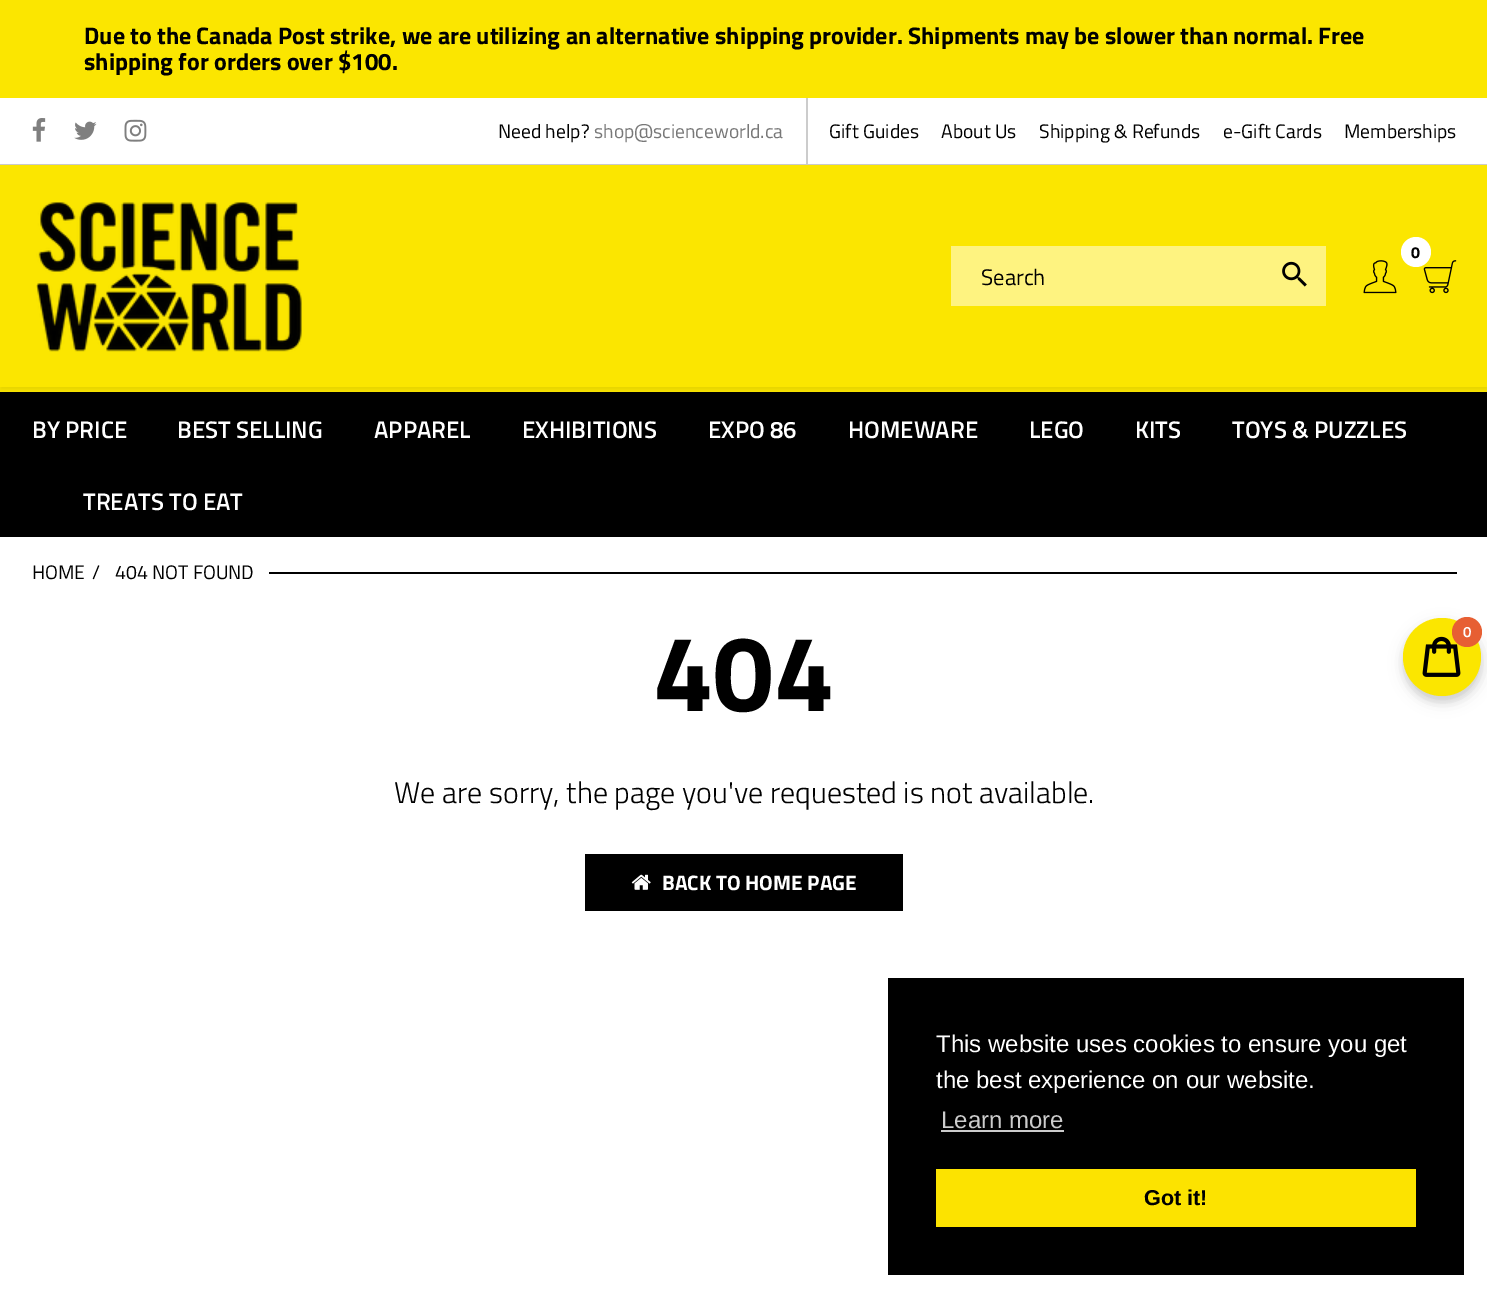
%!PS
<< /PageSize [1487 1299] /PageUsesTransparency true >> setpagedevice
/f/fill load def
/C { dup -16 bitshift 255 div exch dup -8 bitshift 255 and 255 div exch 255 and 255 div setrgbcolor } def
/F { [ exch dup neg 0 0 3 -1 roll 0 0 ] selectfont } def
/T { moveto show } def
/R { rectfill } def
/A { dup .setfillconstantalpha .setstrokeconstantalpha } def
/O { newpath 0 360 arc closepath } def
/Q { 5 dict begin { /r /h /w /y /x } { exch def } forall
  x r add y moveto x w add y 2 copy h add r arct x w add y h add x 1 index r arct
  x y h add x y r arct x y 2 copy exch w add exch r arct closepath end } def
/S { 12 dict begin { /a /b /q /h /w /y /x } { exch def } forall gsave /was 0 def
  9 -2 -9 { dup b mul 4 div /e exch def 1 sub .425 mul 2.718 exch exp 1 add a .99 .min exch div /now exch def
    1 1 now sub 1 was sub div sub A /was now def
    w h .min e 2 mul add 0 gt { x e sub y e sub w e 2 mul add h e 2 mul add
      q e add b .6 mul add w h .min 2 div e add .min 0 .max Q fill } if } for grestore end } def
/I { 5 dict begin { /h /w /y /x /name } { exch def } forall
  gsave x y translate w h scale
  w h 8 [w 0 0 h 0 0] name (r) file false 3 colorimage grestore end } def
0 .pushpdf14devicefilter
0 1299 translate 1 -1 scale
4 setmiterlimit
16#FFFFFF C
0 0 1487 1299 R
16#FBE600 C
0 0 1487 98 R
/TitilliumWeb-Bold 24 F
16#000000 C
(Due to the Canada Post strike, we are utilizing an alternative shipping provider. Shipments may be slower than normal. Free) 84 44 T
(shipping for orders over $100.) 84 70 T
16#FBE600 C
0 387 1487 5 R
16#CCCCCC C
0 164 1487 1 R
(1.rgb) 32 118 14 24 I
(2.rgb) 74 121 23 19 I
(3.rgb) 124 119 23 23 I
806 98 2 66 R
/TitilliumWeb-Regular 19.5 F
16#000000 C
(Need help?) 498 138 T
16#787878 C
(shop@scienceworld.ca) 594 138 T
16#000000 C
(Gift Guides) 829 138 T
(About Us) 941 138 T
(Shipping & Refunds) 1039 138 T
(e-Gift Cards) 1223 138 T
(Memberships) 1344 138 T
16#010101 C
0 168 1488 222 0 2 .07 S
16#FBE600 C
0 165 1487 222 R
(4.rgb) 36 202 266 150 I
(5.rgb) 1423 260 34 34 I
16#FFFFFF C
1416 252 15 O f
/TitilliumWeb-Bold 16 F
16#000000 C
(0) 1411 258 T
(6.rgb) 1363 260 34 34 I
16#FEF380 C
951 246 375 60 R
/TitilliumWeb-Regular 22.5 F
16#000000 C
(Search) 981 285 T
(7.rgb) 1282 261 25 26 I
0 392 1487 145 R
/TitilliumWeb-SemiBold 24 F
16#FFFFFF C
(BY PRICE) 32 438 T
(BEST SELLING) 177 438 T
(APPAREL) 374 438 T
(EXHIBITIONS) 522 438 T
(EXPO 86) 708 438 T
(HOMEWARE) 848 438 T
(LEGO) 1029 438 T
(KITS) 1135 438 T
(TOYS & PUZZLES) 1232 438 T
(TREATS TO EAT) 83 510 T
/TitilliumWeb-Regular 19.5 F
16#000000 C
(HOME) 32 579 T
(/) 92 579 T
(404 NOT FOUND) 115 579 T
269 572 1188 2 R
/TitilliumWeb-Bold 108 F
(404) 653 711 T
/TitilliumWeb-Light 30 F
(We are sorry, the page you've requested is not available.) 394 803 T
585 854 318 57 R
(8.rgb) 631 874 20 16 I
/TitilliumWeb-Bold 21 F
16#FFFFFF C
(BACK TO HOME PAGE) 662 890 T
16#000000 C
1403 624 78 78 39 3 .08 S
1404 624 78 78 39 7.5 .12 S
16#FBE600 C
1442 657 39 O f
(9.rgb) 1422 636 39 41 I
16#E75F33 C
1467 632 15 O f
/TitilliumWeb-SemiBold 15 F
16#FFFFFF C
(0) 1463 637 T
16#000000 C
888 978 576 297 R
/LiberationSans-Regular 24 F
16#FFFFFF C
(This website uses cookies to ensure you get) 936 1052 T
(the best experience on our website.) 936 1088 T
16#CCCCCC C
(Learn more) 941 1128 T
941 1130 123 2 R
16#FCE300 C
936 1169 480 58 R
/LiberationSans-Bold 21.5 F
16#000000 C
(Got it!) 1144 1205 T
.poppdf14devicefilter showpage
